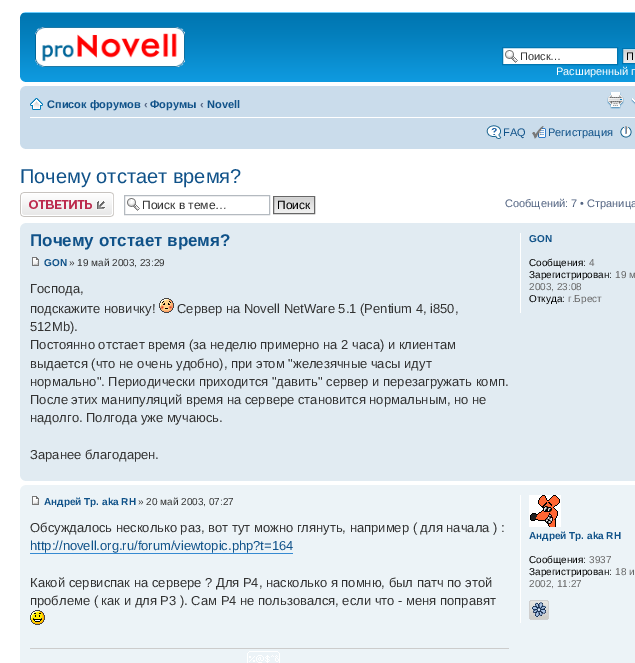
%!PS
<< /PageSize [635 663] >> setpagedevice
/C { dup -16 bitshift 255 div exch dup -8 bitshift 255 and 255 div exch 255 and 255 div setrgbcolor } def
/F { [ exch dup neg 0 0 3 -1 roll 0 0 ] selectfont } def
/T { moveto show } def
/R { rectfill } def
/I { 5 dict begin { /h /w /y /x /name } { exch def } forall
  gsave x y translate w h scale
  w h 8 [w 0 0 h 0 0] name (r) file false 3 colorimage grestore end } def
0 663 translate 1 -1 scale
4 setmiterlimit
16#FFFFFF C
0 0 635 663 R
(1.rgb) 20 12 615 70 I
(2.rgb) 20 12 5 5 I
(3.rgb) 35 27 150 40 I
503 48 114 16 R
(4.rgb) 505 50 13 13 I
16#0075B0 C
502.5 47.5 115 17 rectstroke
/LiberationSans-Regular 11 F
16#333333 C
(Поиск…) 520 60 T
(5.rgb) 623 49 12 14 I
16#0075B0 C
622.5 48.5 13 15 rectstroke
16#000000 C
(П) 626 60 T
16#FFFFFF C
(Расширенный п) 556 75 T
(6.rgb) 20 77 5 5 I
16#CADCEB C
20 86 615 63 R
(7.rgb) 20 86 5 5 I
16#FFFFFF C
30 117 605 1 R
(8.rgb) 30 98 13 12 I
/LiberationSans-Bold 11 F
16#105289 C
(Список форумов) 47 108 T
16#536482 C
(‹) 144 108 T
16#105289 C
(Форумы) 150 108 T
16#536482 C
(‹) 200 108 T
16#105289 C
(Novell) 207 108 T
(9.rgb) 607 92 17 17 I
(10.rgb) 631 98 4 7 I
(11.rgb) 486 125 16 14 I
/LiberationSans-Regular 11 F
(FAQ) 503 136 T
(12.rgb) 532 126 14 13 I
(Регистрация) 548 136 T
(13.rgb) 620 126 12 12 I
(14.rgb) 20 144 5 5 I
/LiberationSans-Regular 20 F
(Почему отстает время?) 20 183 T
(15.rgb) 20 192 94 25 I
(4.rgb) 127 198 13 13 I
16#B4BAC0 C
124.5 195.5 145 19 rectstroke
/LiberationSans-Regular 12 F
16#333333 C
(Поиск в теме…) 142 209 T
(16.rgb) 274 197 40 16 I
16#666666 C
273.5 196.5 41 17 rectstroke
16#000000 C
(Поиск) 277 209 T
/LiberationSans-Regular 11 F
16#536482 C
(Сообщений: 7 • Страница) 505 207 T
16#E1EBF2 C
20 223 615 258 R
(17.rgb) 20 223 5 5 I
/LiberationSans-Bold 17 F
16#105289 C
(Почему отстает время?) 30 246 T
(18.rgb) 32 257 7 9 I
/LiberationSans-Bold 10 F
(GON) 44 266 T
/LiberationSans-Regular 10 F
16#333333 C
(» 19 май 2003, 23:29) 69 266 T
/LiberationSans-Regular 13 F
(Господа,) 30 293 T
(подскажите новичку!) 30 313 T
(19.rgb) 159 298 15 15 I
(Сервер на Novell NetWare 5.1 \(Pentium 4, i850,) 177 313 T
(512Mb\).) 30 331 T
(Постоянно отстает время \(за неделю примерно на 2 часа\) и клиентам) 30 349 T
(выдается \(что не очень удобно\), при этом "железячные часы идут) 30 368 T
(нормально". Периодически приходится "давить" сервер и перезагружать комп.) 30 386 T
(После этих манипуляций время на сервере становится нормальным, но не) 30 404 T
(надолго. Полгода уже мучаюсь.) 30 422 T
(Заранее благодарен.) 30 459 T
16#FFFFFF C
520 233 1 80 R
/LiberationSans-Bold 10 F
16#105289 C
(GON) 529 242 T
/LiberationSans-Regular 10 F
16#000000 C
(Сообщения:) 529 266 T
16#666666 C
(4) 589 266 T
16#000000 C
(Зарегистрирован:) 529 278 T
16#666666 C
(19 м) 615 278 T
(2003, 23:08) 529 290 T
16#000000 C
(Откуда:) 529 302 T
16#666666 C
(г.Брест) 568 302 T
(20.rgb) 20 476 5 5 I
16#ECF3F7 C
20 485 615 178 R
(21.rgb) 20 485 5 5 I
(22.rgb) 32 496 7 9 I
/LiberationSans-Bold 10 F
16#105289 C
(Андрей Тр. aka RH) 44 505 T
/LiberationSans-Regular 10 F
16#333333 C
(» 20 май 2003, 07:27) 138 505 T
/LiberationSans-Regular 13 F
(Обсуждалось несколько раз, вот тут можно глянуть, например \( для начала \) :) 30 532 T
16#105289 C
(http://novell.org.ru/forum/viewtopic.php?t=164) 30 550 T
16#368AD2 C
30 553 263 1 R
16#333333 C
(Какой сервиспак на сервере ? Для Р4, насколько я помню, был патч по этой) 30 587 T
(проблеме \( как и для Р3 \). Сам Р4 не пользовался, если что - меня поправят) 30 605 T
(23.rgb) 30 610 15 15 I
16#CCCCCC C
30 648 479 1 R
(24.rgb) 247 651 33 12 I
16#FFFFFF C
520 495 1 128 R
(25.rgb) 529 495 32 32 I
/LiberationSans-Bold 10 F
16#105289 C
(Андрей Тр. aka RH) 529 539 T
/LiberationSans-Regular 10 F
16#000000 C
(Сообщения:) 529 563 T
16#666666 C
(3937) 589 563 T
16#000000 C
(Зарегистрирован:) 529 575 T
16#666666 C
(18 и) 615 575 T
(2002, 11:27) 529 587 T
(26.rgb) 529 600 20 20 I
showpage
